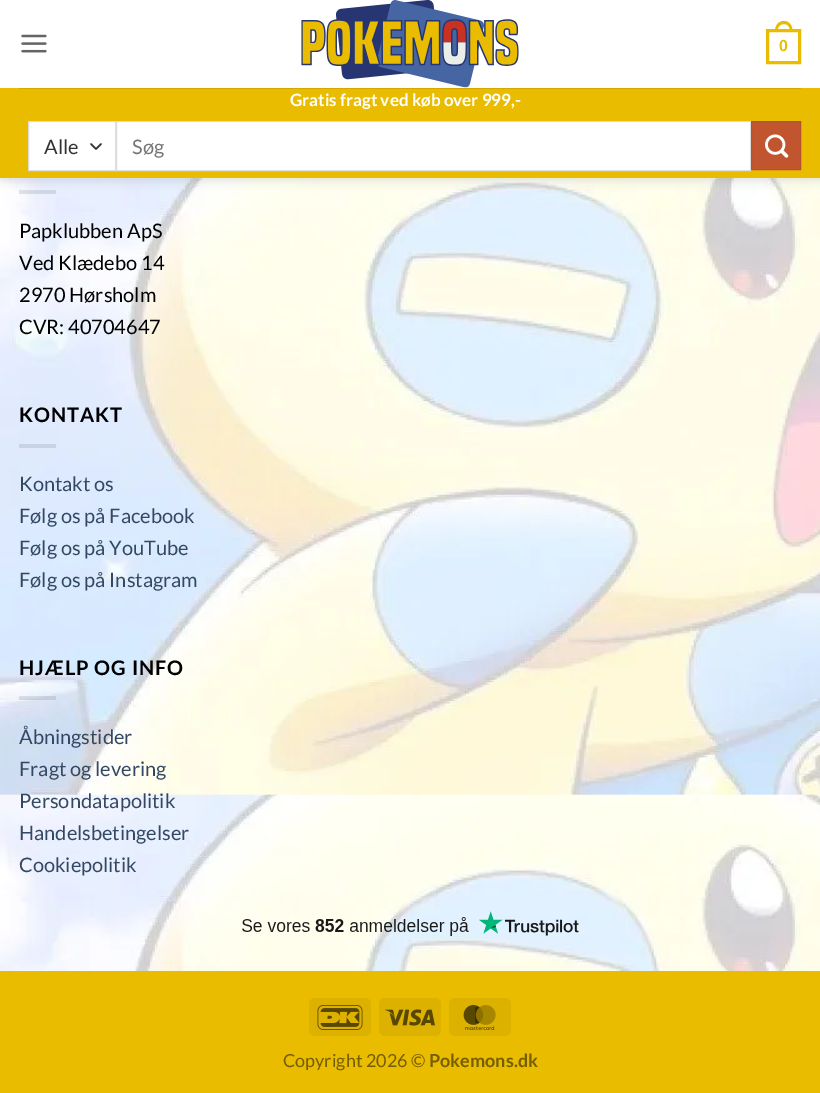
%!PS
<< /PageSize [820 1093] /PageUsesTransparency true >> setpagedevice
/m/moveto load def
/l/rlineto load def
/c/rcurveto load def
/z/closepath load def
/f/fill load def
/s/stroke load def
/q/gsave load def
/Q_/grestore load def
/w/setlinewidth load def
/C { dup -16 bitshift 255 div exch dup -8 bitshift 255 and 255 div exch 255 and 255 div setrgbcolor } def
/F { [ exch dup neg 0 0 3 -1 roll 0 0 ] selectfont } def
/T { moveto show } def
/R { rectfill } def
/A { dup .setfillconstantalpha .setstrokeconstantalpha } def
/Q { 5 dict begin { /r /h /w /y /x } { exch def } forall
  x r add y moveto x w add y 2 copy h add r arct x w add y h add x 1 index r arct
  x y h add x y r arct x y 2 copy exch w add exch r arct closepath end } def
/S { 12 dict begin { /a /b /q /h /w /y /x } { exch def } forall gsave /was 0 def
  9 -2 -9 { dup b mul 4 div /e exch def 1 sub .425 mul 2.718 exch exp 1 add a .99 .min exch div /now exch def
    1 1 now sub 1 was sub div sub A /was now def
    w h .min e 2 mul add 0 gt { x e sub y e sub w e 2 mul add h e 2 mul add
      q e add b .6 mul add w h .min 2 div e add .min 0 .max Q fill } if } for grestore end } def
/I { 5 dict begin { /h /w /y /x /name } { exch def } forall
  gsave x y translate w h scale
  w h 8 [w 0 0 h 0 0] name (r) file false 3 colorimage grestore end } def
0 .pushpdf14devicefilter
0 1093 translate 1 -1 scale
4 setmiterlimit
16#FFFFFF C
0 0 820 1093 R
(4.rgb) 0 178 820 793 I
0.1 A
16#000000 C
19 190 37 4 R
1 A
1 1 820 178 0 6 .15 S
16#FFFFFF C
0 0 820 88 R
(1.rgb) 21 34 26 19 I
(2.rgb) 301 0 218 88 I
16#EABC00 C
3 w
767.5 30.5 32 32 rectstroke
784 21 m 5.5 0 8.5 5 8.5 10 c -17.5 0 l 0 -5 3 -10 9 -10 c z 784 24 m 4 0 6 3.5 6 7 c -12.5 0 l 0 -3.5 2 -7 6.5 -7 c z eofill
/LiberationSans-Bold 16 F
(0) 779 51 T
0 88 820 90 R
16#D3A900 C
19 88 782 1 R
/Lato-Bold 17 F
16#FFFFFF C
(Gratis fragt ved køb over 999,-) 290 106 T
29 122 86 48 R
16#333333 C
1.7 w
1 setlinecap
1 setlinejoin
91 144 m 5 5 l 5 -5 l s
16#DDDDDD C
1 w
0 setlinecap
0 setlinejoin
28.5 121.5 87 49 rectstroke
/Lato-Regular 20 F
16#333333 C
(Alle) 44 154 T
16#FFFFFF C
116.5 121.5 m 634 0 l 0 49 l -634 0 l z q f Q_
16#DDDDDD C
s
16#757575 C
(Søg) 132 154 T
16#C05530 C
751.5 121.5 m 49 0 l 0 48 l -49 0 l z q f Q_
16#B6512E C
s
(3.rgb) 765 134 24 24 I
16#000000 C
(Papklubben ApS) 19 238 T
(Ved Klædebo 14) 19 270 T
(2970 Hørsholm) 19 302 T
(CVR: 40704647) 19 334 T
/Lato-Bold 20 F
19 422 m 1 0 (KONTAKT) ashow
16#C9D3E4 C
19 444 37 4 R
/Lato-Regular 20 F
16#334862 C
(Kontakt os) 19 491 T
(Følg os på Facebook) 19 523 T
(Følg os på YouTube) 19 555 T
(Følg os på Instagram) 19 587 T
/Lato-Bold 20 F
16#000000 C
19 675 m 1 0 (HJÆLP OG INFO) ashow
0.1 A
19 696 37 4 R
/Lato-Regular 20 F
1 A
16#334862 C
(Åbningstider) 19 744 T
(Fragt og levering) 19 776 T
(Persondatapolitik) 19 808 T
(Handelsbetingelser) 19 840 T
(Cookiepolitik) 19 872 T
(5.rgb) 242 911 337 25 I
16#EABC00 C
0 971 820 122 R
16#DCB100 C
309 998 62 38 6 Q f
(6.rgb) 317 1005 46 25 I
379 998 62 38 6 Q f
(7.rgb) 385 1009 50 17 I
449 998 62 38 6 Q f
(8.rgb) 463 1005 33 25 I
/Lato-Regular 18 F
16#755E00 C
(Copyright 2026 ©) 283 1067 T
/Lato-Bold 18 F
(Pokemons.dk) 429 1067 T
.poppdf14devicefilter showpage
